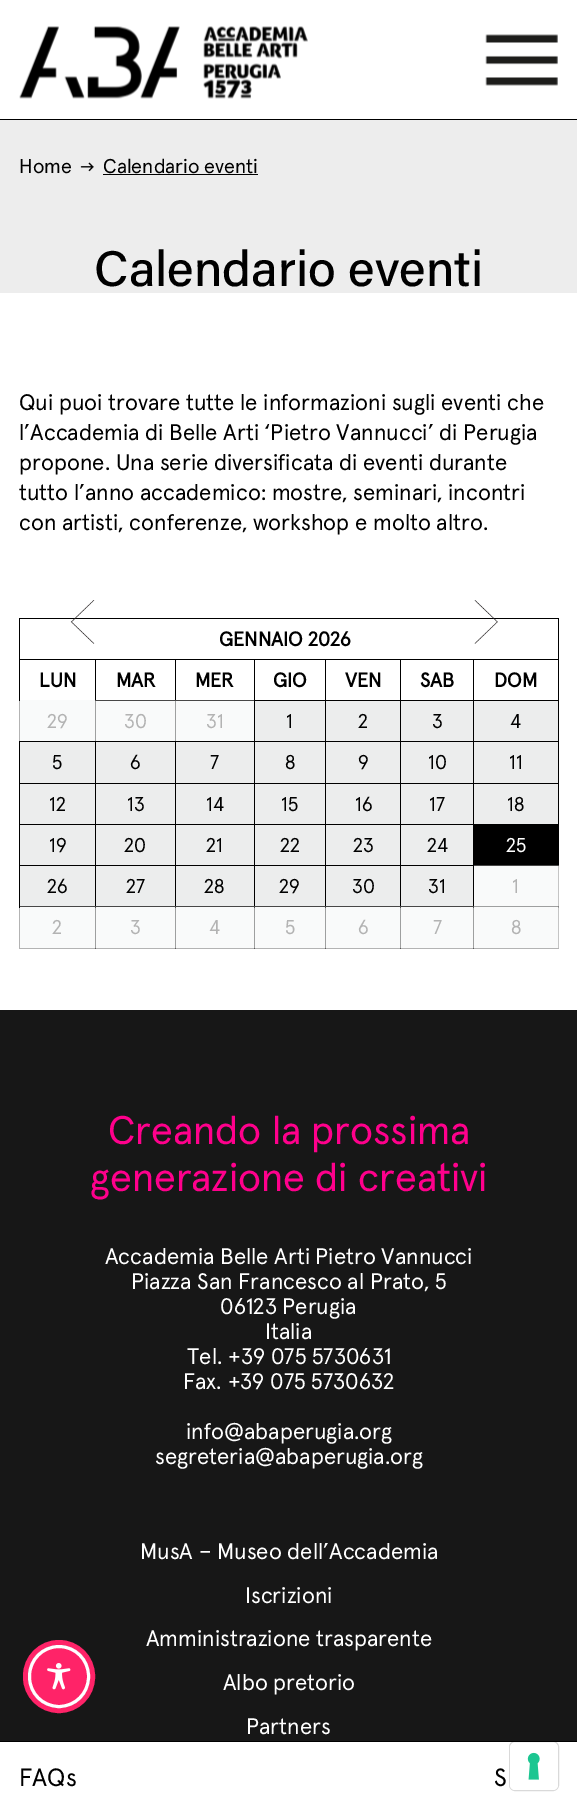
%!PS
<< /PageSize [577 1809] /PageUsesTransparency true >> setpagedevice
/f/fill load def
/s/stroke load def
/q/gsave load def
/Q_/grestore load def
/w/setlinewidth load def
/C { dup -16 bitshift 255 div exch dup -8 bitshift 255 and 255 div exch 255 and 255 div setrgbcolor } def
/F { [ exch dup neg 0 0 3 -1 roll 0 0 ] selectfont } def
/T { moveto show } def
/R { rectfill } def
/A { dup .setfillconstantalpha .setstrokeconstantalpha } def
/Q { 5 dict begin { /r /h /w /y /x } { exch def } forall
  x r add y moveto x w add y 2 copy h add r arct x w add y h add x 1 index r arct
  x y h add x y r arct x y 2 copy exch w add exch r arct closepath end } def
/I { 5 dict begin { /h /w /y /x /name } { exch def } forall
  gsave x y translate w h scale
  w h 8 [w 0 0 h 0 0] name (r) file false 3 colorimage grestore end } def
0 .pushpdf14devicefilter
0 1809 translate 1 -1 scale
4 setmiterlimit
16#FFFFFF C
0 0 577 1809 R
16#F9FAFA C
474 907 84 41 R
401 907 72 41 R
326 907 74 41 R
255 907 70 41 R
176 907 78 41 R
96 907 79 41 R
20 907 75 41 R
474 866 84 40 R
176 701 78 40 R
96 701 79 40 R
16#B3B3B3 C
19 700 1 43 R
16#9E9F9F C
95 700 1 41 R
175 700 1 41 R
16#C4C4C4 C
558 865 1 41 R
16#B3B3B3 C
19 948 540 1 R
16#000000 C
0 119 577 1 R
(1.rgb) 19 26 289 73 I
(2.rgb) 485 34 73 52 I
16#EDEDED C
0 120 577 173 R
/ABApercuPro-Regular 20 F
16#000000 C
(Home) 19 173 T
(3.rgb) 80 162 14 10 I
(Calendario eventi) 103 173 T
103 174 155 1 R
/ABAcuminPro-Medium 50 F
(Calendario eventi) 94 286 T
/ABApercuPro-Regular 22.5 F
(Qui puoi trovare tutte le informazioni sugli eventi che) 19 410 T
(l’Accademia di Belle Arti ‘Pietro Vannucci’ di Perugia) 19 440 T
(propone. Una serie diversificata di eventi durante) 19 470 T
(tutto l’anno accademico: mostre, seminari, incontri) 19 500 T
(con artisti, conferenze, workshop e molto altro.) 19 530 T
19 618 540 1 R
558 618 1 42 R
19 659 540 1 R
19 618 1 83 R
(4.rgb) 70 600 25 44 I
/ABApercuPro-Bold 20 F
(GENNAIO 2026) 219 646 T
(5.rgb) 474 600 24 44 I
16#474747 C
175 700 79 1 R
16#000000 C
175 659 1 42 R
16#474747 C
95 700 81 1 R
16#000000 C
95 659 1 42 R
16#474747 C
95 700 1 1 R
16#000000 C
(LUN) 39 687 T
(MAR) 116 687 T
(MER) 195 687 T
(GIO) 273 687 T
473 700 86 1 R
473 741 86 1 R
473 783 86 1 R
473 824 86 1 R
400 865 74 1 R
16#9E9F9F C
473 906 1 42 R
16#000000 C
473 865 1 43 R
473 824 1 42 R
400 824 74 1 R
473 783 1 42 R
400 783 74 1 R
473 741 1 43 R
400 741 74 1 R
473 700 1 43 R
400 700 74 1 R
16#9E9F9F C
400 906 1 42 R
16#000000 C
400 865 1 43 R
325 865 76 1 R
400 824 1 42 R
325 824 76 1 R
400 783 1 42 R
325 783 76 1 R
400 741 1 43 R
325 741 76 1 R
400 700 1 43 R
325 700 76 1 R
16#9E9F9F C
325 906 1 42 R
16#000000 C
325 865 1 43 R
254 865 72 1 R
325 824 1 42 R
254 824 72 1 R
325 783 1 42 R
254 783 72 1 R
325 741 1 43 R
254 741 72 1 R
325 700 1 43 R
254 700 72 1 R
325 659 1 42 R
(VEN) 345 687 T
400 659 1 42 R
(SAB) 420 687 T
473 659 1 42 R
(DOM) 494 687 T
16#F9FAFA C
20 700 75 41 R
/ABApercuPro-Regular 20 F
16#B3B3B3 C
(29) 47 728 T
(30) 124 728 T
(31) 206 728 T
16#ECEDED C
255 701 70 40 R
16#474747 C
325 906 1 2 R
16#9E9F9F C
95 906 1 42 R
175 906 1 42 R
254 906 1 42 R
16#474747 C
20 906 306 1 R
16#000000 C
254 865 1 43 R
175 865 80 1 R
254 824 1 42 R
175 824 80 1 R
254 783 1 42 R
175 783 80 1 R
254 741 1 43 R
175 741 80 1 R
254 659 1 84 R
(1) 286 728 T
16#ECEDED C
326 701 74 40 R
16#000000 C
(2) 358 728 T
16#ECEDED C
401 701 72 40 R
16#000000 C
(3) 432 728 T
16#ECEDED C
474 701 84 40 R
16#000000 C
558 824 1 42 R
558 783 1 42 R
558 741 1 43 R
558 659 1 84 R
(4) 510 728 T
16#ECEDED C
20 742 75 41 R
16#000000 C
175 865 1 43 R
95 865 81 1 R
175 824 1 42 R
95 824 81 1 R
175 783 1 42 R
95 783 81 1 R
175 741 1 43 R
95 741 81 1 R
95 865 1 43 R
19 865 77 1 R
95 824 1 42 R
19 824 77 1 R
95 783 1 42 R
19 783 77 1 R
95 741 1 43 R
19 741 77 1 R
16#B3B3B3 C
19 906 1 43 R
16#000000 C
19 865 1 43 R
19 824 1 42 R
19 783 1 42 R
19 741 1 43 R
(5) 52 769 T
16#ECEDED C
96 742 79 41 R
16#000000 C
(6) 130 769 T
16#ECEDED C
176 742 78 41 R
16#000000 C
(7) 210 769 T
16#ECEDED C
255 742 70 41 R
16#000000 C
(8) 285 769 T
16#ECEDED C
326 742 74 41 R
16#000000 C
(9) 358 769 T
16#ECEDED C
401 742 72 41 R
16#000000 C
(10) 428 769 T
16#ECEDED C
474 742 84 41 R
16#000000 C
(11) 509 769 T
16#ECEDED C
20 784 75 40 R
16#000000 C
(12) 49 811 T
16#ECEDED C
96 784 79 40 R
16#000000 C
(13) 127 811 T
16#ECEDED C
176 784 78 40 R
16#000000 C
(14) 206 811 T
16#ECEDED C
255 784 70 40 R
16#000000 C
(15) 281 811 T
16#ECEDED C
326 784 74 40 R
16#000000 C
(16) 355 811 T
16#ECEDED C
401 784 72 40 R
16#000000 C
(17) 429 811 T
16#ECEDED C
474 784 84 40 R
16#000000 C
(18) 507 811 T
16#ECEDED C
20 825 75 40 R
16#000000 C
(19) 49 852 T
16#ECEDED C
96 825 79 40 R
16#000000 C
(20) 124 852 T
16#ECEDED C
176 825 78 40 R
16#000000 C
(21) 206 852 T
16#ECEDED C
255 825 70 40 R
16#000000 C
(22) 280 852 T
16#ECEDED C
326 825 74 40 R
16#000000 C
(23) 353 852 T
16#ECEDED C
401 825 72 40 R
16#000000 C
(24) 427 852 T
474 825 84 40 R
16#474747 C
474 865 85 1 R
16#FFFFFF C
(25) 506 852 T
16#ECEDED C
20 866 75 40 R
16#000000 C
(26) 47 893 T
16#ECEDED C
96 866 79 40 R
16#474747 C
95 906 1 2 R
16#000000 C
(27) 126 893 T
16#ECEDED C
176 866 78 40 R
16#474747 C
175 906 1 2 R
16#000000 C
(28) 204 893 T
16#ECEDED C
255 866 70 40 R
16#474747 C
254 906 1 2 R
16#000000 C
(29) 279 893 T
16#ECEDED C
326 866 74 40 R
16#474747 C
400 906 1 2 R
326 906 75 1 R
16#000000 C
(30) 352 893 T
16#ECEDED C
401 866 72 40 R
16#474747 C
473 906 1 2 R
401 906 73 1 R
16#000000 C
(31) 428 893 T
16#B3B3B3 C
(1) 512 893 T
16#585858 C
95 948 1 1 R
16#B3B3B3 C
(2) 52 934 T
16#585858 C
175 948 1 1 R
16#B3B3B3 C
(3) 130 934 T
16#585858 C
254 948 1 1 R
16#B3B3B3 C
(4) 209 934 T
16#585858 C
325 948 1 1 R
16#B3B3B3 C
(5) 285 934 T
16#585858 C
400 948 1 1 R
16#B3B3B3 C
(6) 358 934 T
16#585858 C
473 948 1 1 R
16#B3B3B3 C
(7) 433 934 T
16#9E9F9F C
474 906 85 1 R
16#C4C4C4 C
558 906 1 42 R
16#9E9F9F C
558 906 1 2 R
16#848585 C
558 906 1 1 R
16#B3B3B3 C
(8) 511 934 T
16#171717 C
0 1010 577 731 R
16#FF2368 C
5 w
25.5 1642.5 67 68 33.5 Q s
29.5 1646.5 59 60 29.5 Q q f Q_
16#FFFFFF C
3 w
s
(6.rgb) 47 1663 24 27 I
/ABApercuPro-Regular 40 F
16#FF008C C
(Creando la prossima) 108 1144 T
(generazione di creativi) 90 1191 T
/ABApercuPro-Regular 22.5 F
16#FFFFFF C
(Accademia Belle Arti Pietro Vannucci) 105 1264 T
(Piazza San Francesco al Prato, 5) 131 1289 T
(06123 Perugia) 220 1314 T
(Italia) 265 1339 T
(Tel. +39 075 5730631) 187 1364 T
(Fax. +39 075 5730632) 183 1389 T
(info@abaperugia.org) 186 1439 T
(segreteria@abaperugia.org) 155 1464 T
(MusA – Museo dell’Accademia) 140 1559 T
(Iscrizioni) 245 1603 T
(Amministrazione trasparente) 146 1646 T
(Albo pretorio) 223 1690 T
(Partners) 246 1734 T
16#000000 C
0 1741 577 1 R
/ABApercuPro-Regular 25 F
(FAQs) 19 1786 T
(S) 494 1786 T
0.15 A
1 w
509.5 1741.5 49 49 5.5 Q s
1 A
16#FFFFFF C
510 1743 48 47 5 Q f
(7.rgb) 527 1752 13 28 I
.poppdf14devicefilter showpage
